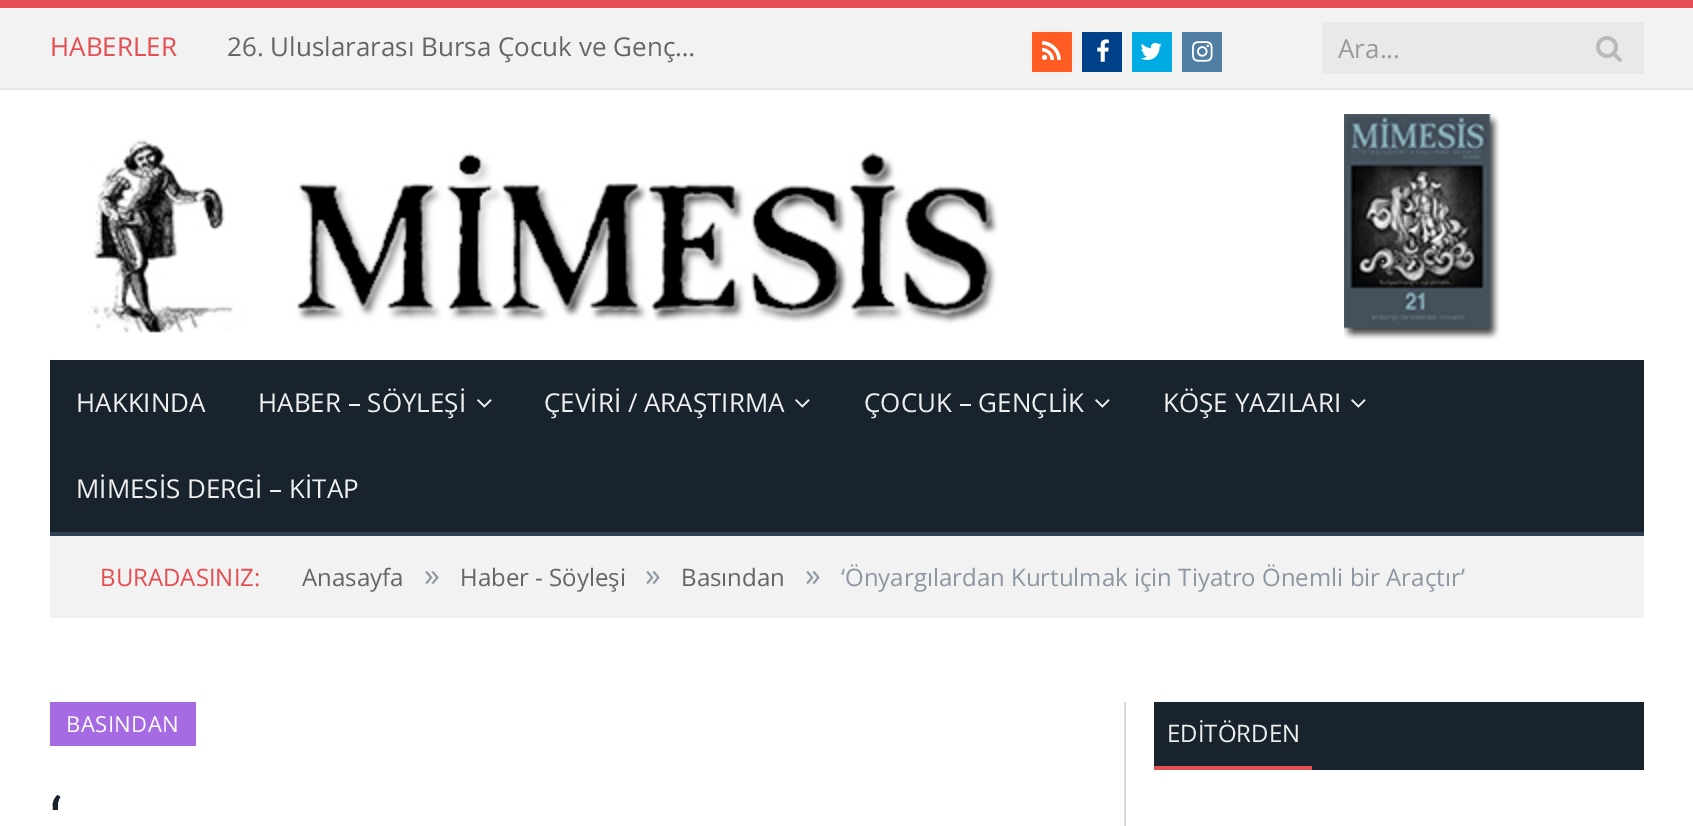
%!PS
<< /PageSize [1693 826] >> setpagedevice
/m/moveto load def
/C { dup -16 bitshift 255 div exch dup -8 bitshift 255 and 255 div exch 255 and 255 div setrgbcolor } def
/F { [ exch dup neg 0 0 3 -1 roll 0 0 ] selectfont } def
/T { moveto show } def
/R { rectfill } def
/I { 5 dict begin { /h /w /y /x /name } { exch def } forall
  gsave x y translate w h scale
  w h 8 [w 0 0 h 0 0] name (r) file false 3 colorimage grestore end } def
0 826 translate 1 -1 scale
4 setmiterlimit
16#FFFFFF C
0 0 1693 826 R
16#F2F2F2 C
0 8 1693 80 R
16#E54E53 C
0 0 1693 8 R
16#E7E7E7 C
0 88 1693 2 R
/OpenSans-Regular 26 F
16#E54E53 C
(HABERLER) 50 56 T
16#656565 C
(26. Uluslararası Bursa Çocuk ve Genç…) 227 56 T
16#FF5B22 C
1032 32 40 40 R
(1.rgb) 1042 41 19 19 I
16#004088 C
1082 32 40 40 R
(2.rgb) 1097 39 12 23 I
16#00ABE3 C
1132 32 40 40 R
(3.rgb) 1140 42 22 18 I
16#517FA4 C
1182 32 40 40 R
(4.rgb) 1192 41 21 21 I
16#E9E9E9 C
1322 22 322 52 R
16#999999 C
(Ara...) 1338 58 T
(5.rgb) 1596 36 26 26 I
(6.rgb) 88 139 910 194 I
(7.rgb) 1344 114 156 226 I
16#19232D C
50 360 1594 172 R
16#2F4154 C
50 532 1594 4 R
16#EFEFEF C
(HAKKINDA) 76 412 T
(HABER – SÖYLEŞİ) 258 412 T
(8.rgb) 477 399 15 9 I
(ÇEVİRİ / ARAŞTIRMA) 544 412 T
(8.rgb) 795 399 15 9 I
(ÇOCUK – GENÇLİK) 864 412 T
(8.rgb) 1095 399 15 9 I
(KÖŞE YAZILARI) 1163 412 T
(8.rgb) 1351 399 15 9 I
(MİMESİS DERGİ – KİTAP) 76 498 T
16#F2F2F2 C
50 536 1594 82 R
/OpenSans-Regular 24 F
16#E54E53 C
(BURADASINIZ:) 100 586 T
16#656565 C
(Anasayfa) 302 586 T
/OpenSans-Regular 32 F
16#8D97A1 C
(») 424 586 T
/OpenSans-Regular 24 F
16#656565 C
(Haber - Söyleşi) 460 586 T
/OpenSans-Regular 32 F
16#8D97A1 C
(») 645 586 T
/OpenSans-Regular 24 F
16#656565 C
(Basından) 681 586 T
/OpenSans-Regular 32 F
16#8D97A1 C
(») 805 586 T
/OpenSans-Regular 24 F
(‘Önyargılardan Kurtulmak için Tiyatro Önemli bir Araçtır’) 841 586 T
16#A66AE2 C
50 702 146 44 R
/OpenSans-Regular 22 F
16#FFFFFF C
66 732 m .5 0 (BASINDAN) ashow
/RobotoSlab-Regular 56 F
16#19232D C
(‘) 50 838 T
16#D9D9D9 C
1124 702 2 124 R
16#19232D C
1154 702 490 68 R
16#E54E53 C
1154 766 158 4 R
/OpenSans-Regular 24 F
16#EFEFEF C
(EDİTÖRDEN) 1167 742 T
showpage
